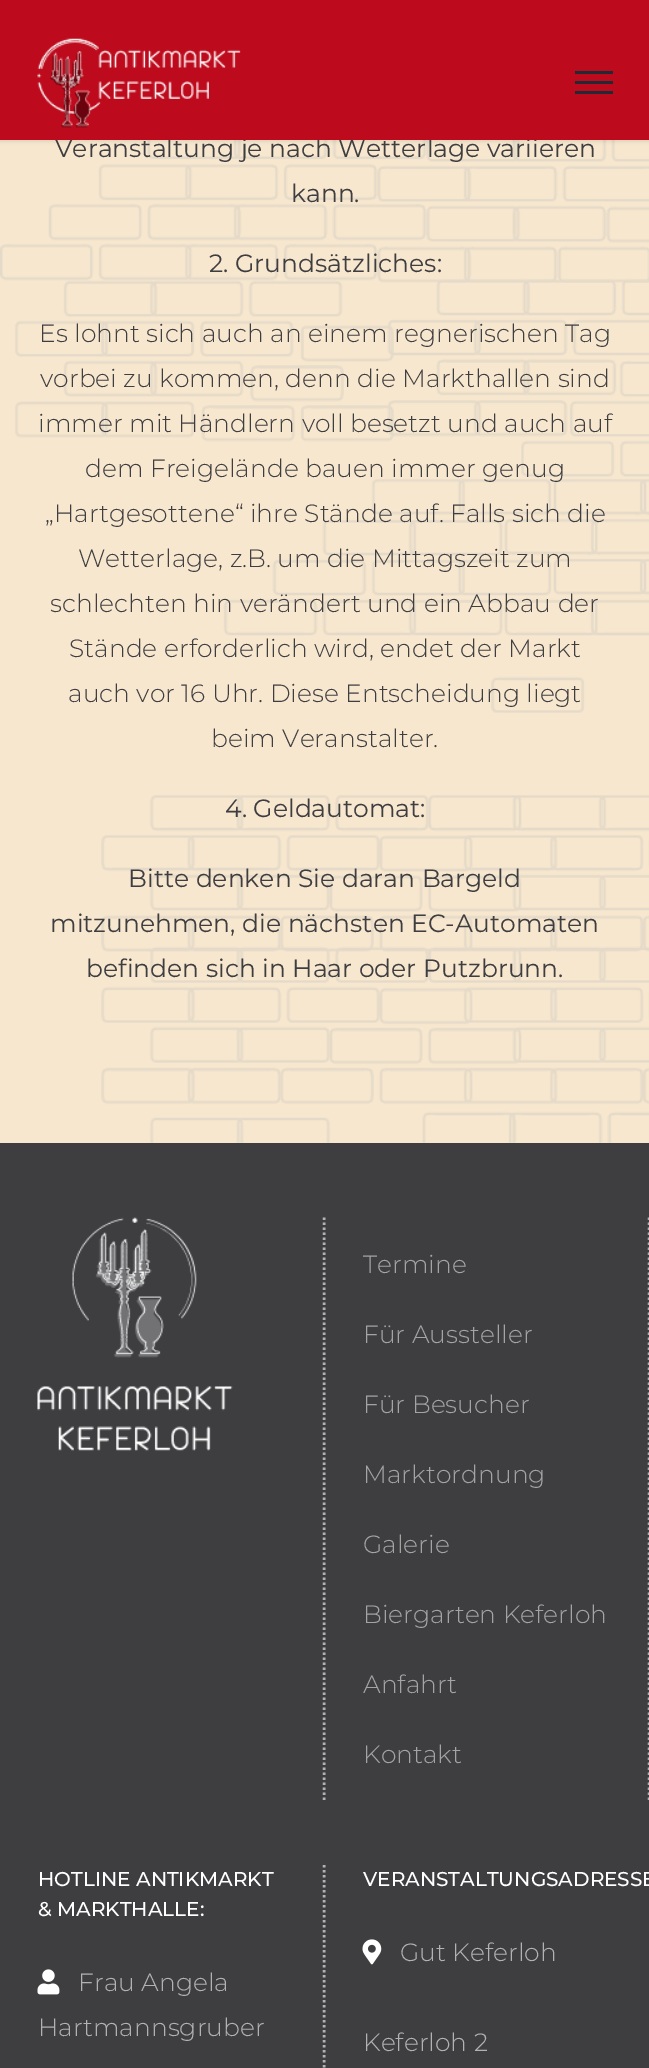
%!PS
<< /PageSize [649 2068] /PageUsesTransparency true >> setpagedevice
/m/moveto load def
/l/rlineto load def
/s/stroke load def
/w/setlinewidth load def
/C { dup -16 bitshift 255 div exch dup -8 bitshift 255 and 255 div exch 255 and 255 div setrgbcolor } def
/F { [ exch dup neg 0 0 3 -1 roll 0 0 ] selectfont } def
/T { moveto show } def
/R { rectfill } def
/A { dup .setfillconstantalpha .setstrokeconstantalpha } def
/Q { 5 dict begin { /r /h /w /y /x } { exch def } forall
  x r add y moveto x w add y 2 copy h add r arct x w add y h add x 1 index r arct
  x y h add x y r arct x y 2 copy exch w add exch r arct closepath end } def
/S { 12 dict begin { /a /b /q /h /w /y /x } { exch def } forall gsave /was 0 def
  9 -2 -9 { dup b mul 4 div /e exch def 1 sub .425 mul 2.718 exch exp 1 add a .99 .min exch div /now exch def
    1 1 now sub 1 was sub div sub A /was now def
    w h .min e 2 mul add 0 gt { x e sub y e sub w e 2 mul add h e 2 mul add
      q e add b .6 mul add w h .min 2 div e add .min 0 .max Q fill } if } for grestore end } def
/I { 5 dict begin { /h /w /y /x /name } { exch def } forall
  gsave x y translate w h scale
  w h 8 [w 0 0 h 0 0] name (r) file false 3 colorimage grestore end } def
0 .pushpdf14devicefilter
0 2068 translate 1 -1 scale
4 setmiterlimit
16#F7E7CE C
0 0 649 2068 R
(2.rgb) 0 140 649 1003 I
16#000000 C
0 1 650 140 0 2 .12 S
/Montserrat-Regular 25 F
16#3E3D40 C
(Veranstaltung je nach Wetterlage variieren) 55 157 T
16#BD0B1D C
0 0 649 140 R
(1.rgb) 37 38 204 90 I
16#212934 C
575 71 38 3 R
575 81 38 3 R
575 91 38 3 R
16#3E3D40 C
(kann.) 291 202 T
(2. Grundsätzliches:) 209 272 T
/Montserrat-Light 25 F
(Es lohnt sich auch an einem regnerischen Tag) 39 342 T
(vorbei zu kommen, denn die Markthallen sind) 40 387 T
(immer mit Händlern voll besetzt und auch auf) 38 432 T
(dem Freigelände bauen immer genug) 85 477 T
(„Hartgesottene“ ihre Stände auf. Falls sich die) 45 522 T
(Wetterlage, z.B. um die Mittagszeit zum) 78 567 T
(schlechten hin verändert und ein Abbau der) 50 612 T
(Stände erforderlich wird, endet der Markt) 69 657 T
(auch vor 16 Uhr. Diese Entscheidung liegt) 68 702 T
(beim Veranstalter.) 211 747 T
/Montserrat-Regular 25 F
(4. Geldautomat:) 225 817 T
(Bitte denken Sie daran Bargeld) 128 887 T
(mitzunehmen, die nächsten EC-Automaten) 50 932 T
(befinden sich in Haar oder Putzbrunn.) 86 977 T
0 1143 649 925 R
16#B2B1B3 C
2.5 w
[2.5 2.5] 0 setdash
324 1217.5 m 0 585 l s
(3.rgb) 37 1217 196 234 I
649 1217.5 m 0 585 l s
/Montserrat-Light 25 F
16#A4A4A5 C
(Termine) 363 1273 T
(Für Aussteller) 363 1343 T
(Für Besucher) 363 1413 T
(Marktordnung) 363 1483 T
(Galerie) 363 1553 T
(Biergarten Keferloh) 363 1623 T
(Anfahrt) 363 1693 T
(Kontakt) 363 1763 T
16#B2B1B3 C
324 1865 m 0 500 l s
/Montserrat-Medium 20 F
16#FFFFFF C
(HOTLINE ANTIKMARKT) 38 1886 T
(& MARKTHALLE:) 38 1916 T
(4.rgb) 37 1969 23 26 I
/Montserrat-Light 25 F
16#B2B1B3 C
(Frau Angela) 78 1991 T
(Hartmannsgruber) 38 2036 T
/Montserrat-Medium 20 F
16#FFFFFF C
(VERANSTALTUNGSADRESSE) 363 1886 T
(5.rgb) 362 1939 20 26 I
/Montserrat-Light 25 F
16#B2B1B3 C
(Gut Keferloh) 400 1961 T
(Keferloh 2) 363 2051 T
.poppdf14devicefilter showpage
